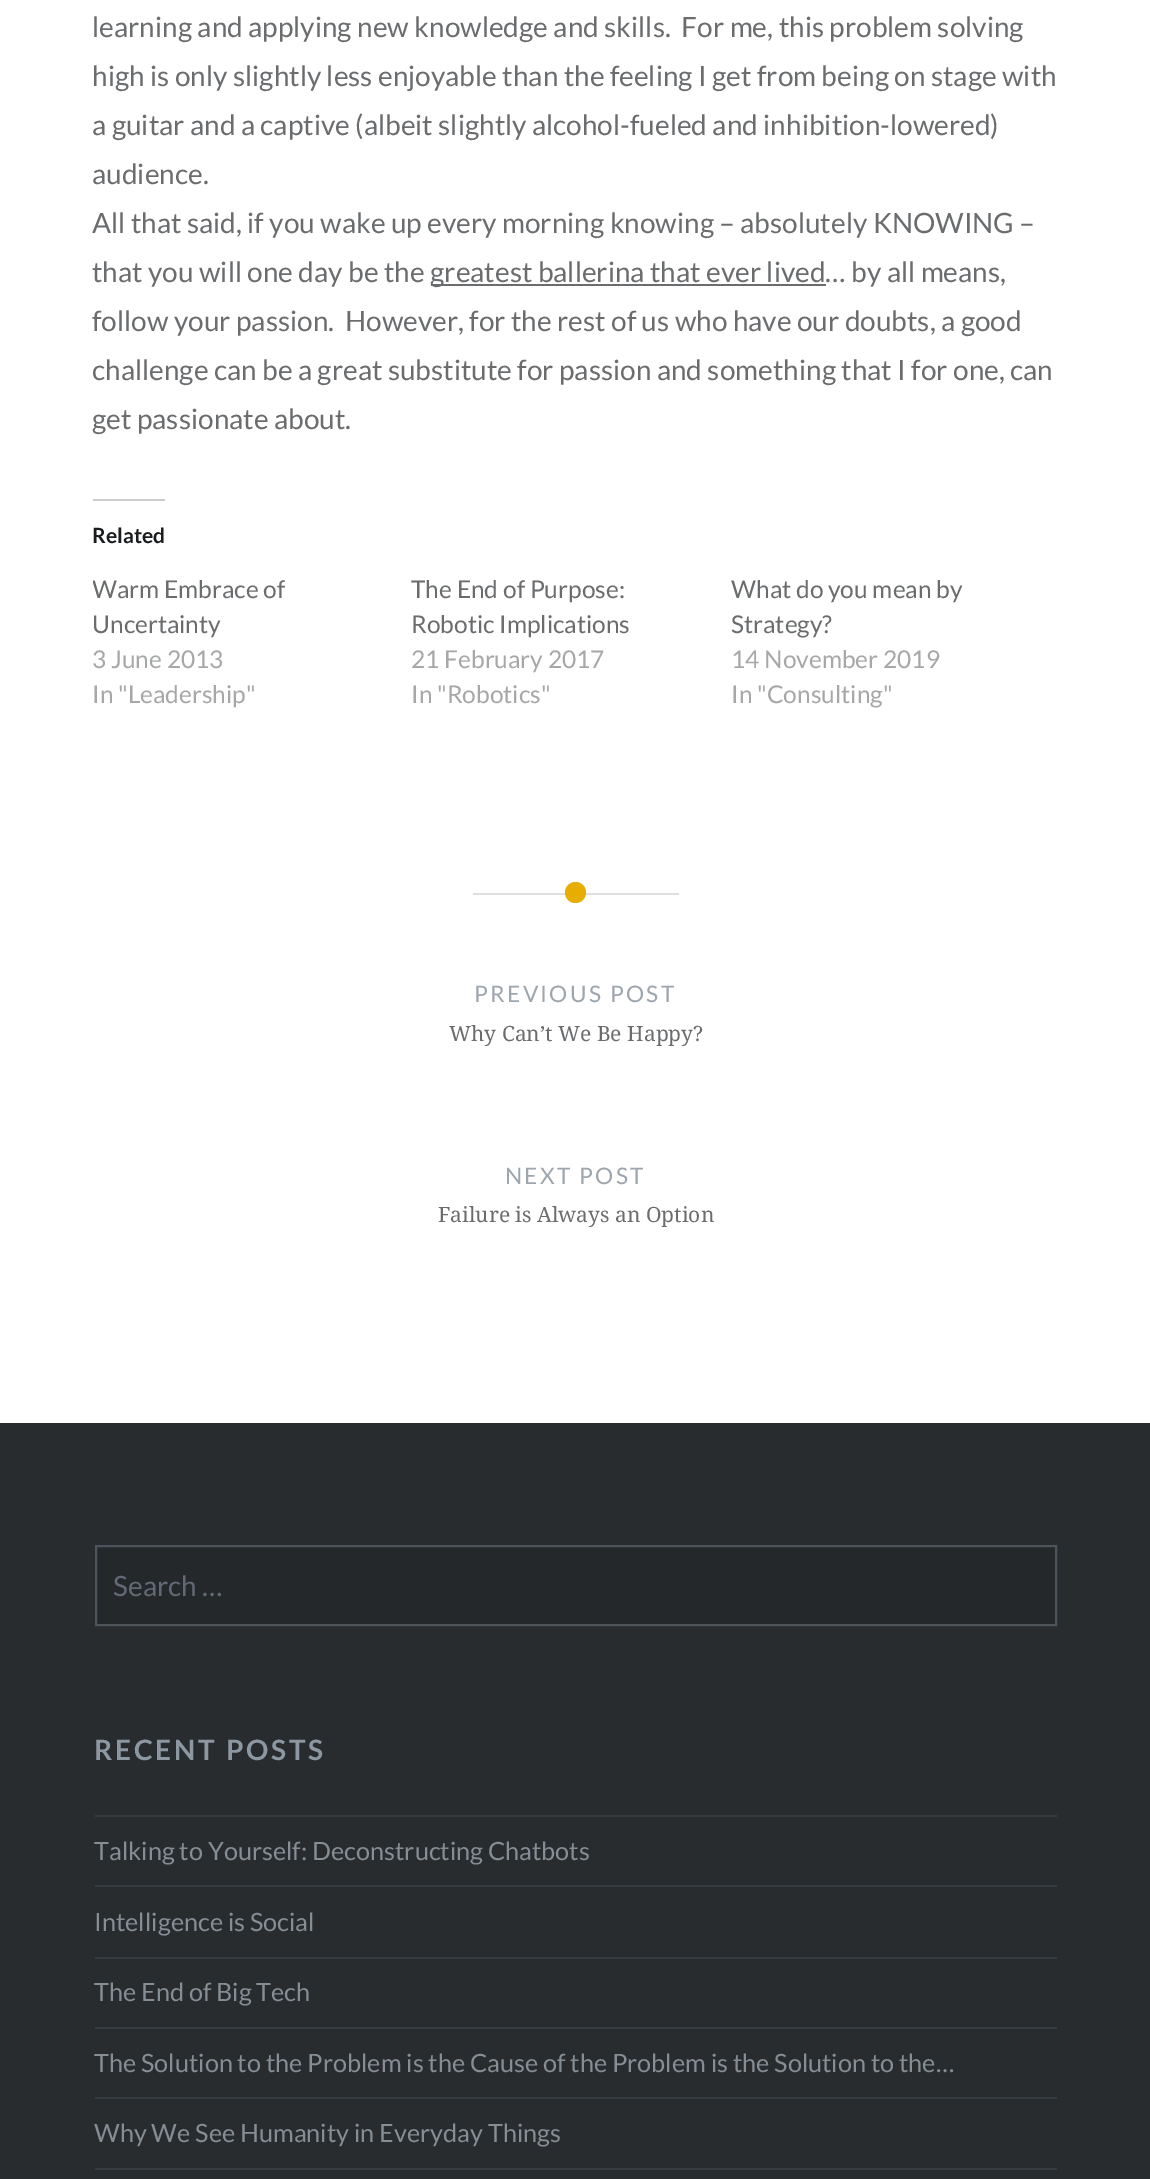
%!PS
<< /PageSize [1150 2179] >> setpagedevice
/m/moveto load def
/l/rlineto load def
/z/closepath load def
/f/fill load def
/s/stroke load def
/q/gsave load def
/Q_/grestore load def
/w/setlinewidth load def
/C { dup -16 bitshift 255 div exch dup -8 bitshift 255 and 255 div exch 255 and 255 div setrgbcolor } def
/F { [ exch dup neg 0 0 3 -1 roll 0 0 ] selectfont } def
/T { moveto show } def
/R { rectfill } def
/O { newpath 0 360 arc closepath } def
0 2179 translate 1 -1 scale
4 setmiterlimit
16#FFFFFF C
0 0 1150 2179 R
/Lato-Regular 28 F
16#6A6C6E C
(learning and applying new knowledge and skills.  For me, this problem solving) 92 37 T
(high is only slightly less enjoyable than the feeling I get from being on stage with) 92 86 T
(a guitar and a captive \(albeit slightly alcohol-fueled and inhibition-lowered\)) 92 135 T
(audience.) 92 184 T
(All that said, if you wake up every morning knowing – absolutely KNOWING –) 92 233 T
(that you will one day be the) 92 282 T
431 284 395 2 R
(greatest ballerina that ever lived… by all means,) 430 282 T
(follow your passion.  However, for the rest of us who have our doubts, a good) 92 331 T
(challenge can be a great substitute for passion and something that I for one, can) 92 380 T
(get passionate about.) 92 429 T
16#CCCCCC C
93 499 72 2 R
/Lato-Bold 21 F
16#1A1C1E C
(Related) 92 543 T
q
93 572 287 70 rectclip
/Lato-Regular 24.5 F
16#6A6C6E C
(Warm Embrace of) 92 598 T
Q_
/Lato-Regular 24.5 F
16#6A6C6E C
(Uncertainty) 92 633 T
16#A6A7A8 C
(3 June 2013) 92 668 T
(In "Leadership") 92 703 T
16#6A6C6E C
(The End of Purpose:) 411 598 T
(Robotic Implications) 411 633 T
16#A6A7A8 C
(21 February 2017) 411 668 T
(In "Robotics") 411 703 T
16#6A6C6E C
(What do you mean by) 731 598 T
(Strategy?) 731 633 T
16#A6A7A8 C
(14 November 2019) 731 668 T
(In "Consulting") 731 703 T
16#E0E0E0 C
473 893 206 2 R
16#E7AE01 C
575.5 892.5 10.5 O f
/Lato-Regular 22.75 F
16#9DA5AD C
474 1002 m 2.25 0 (PREVIOUS POST) ashow
/NotoSerif-Regular 21 F
16#6A6C6E C
(Why Can’t We Be Happy?) 449 1041 T
/Lato-Regular 22.75 F
16#9DA5AD C
505 1184 m 2.25 0 (NEXT POST) ashow
/NotoSerif-Regular 21 F
16#6A6C6E C
(Failure is Always an Option) 438 1222 T
16#292C2F C
0 1423 1150 756 R
16#25282A C
96 1546 m 960 0 l 0 79 l -960 0 l z q f Q_
16#4D545B C
2 w
s
/Lato-Regular 28 F
16#616A74 C
(Search …) 113 1596 T
/Lato-Bold 28 F
16#8C97A2 C
94 1760 m 2.75 0 (RECENT POSTS) ashow
16#363B40 C
95 1815 962 2 R
95 1885 962 2 R
/Lato-Regular 25.2 F
16#858D95 C
(Talking to Yourself: Deconstructing Chatbots) 94 1860 T
16#363B40 C
95 1957 962 2 R
16#858D95 C
(Intelligence is Social) 94 1931 T
16#363B40 C
95 2027 962 2 R
16#858D95 C
(The End of Big Tech) 94 2001 T
16#363B40 C
95 2097 962 2 R
16#858D95 C
(The Solution to the Problem is the Cause of the Problem is the Solution to the…) 94 2072 T
16#363B40 C
95 2168 962 2 R
16#858D95 C
(Why We See Humanity in Everyday Things) 94 2142 T
showpage
